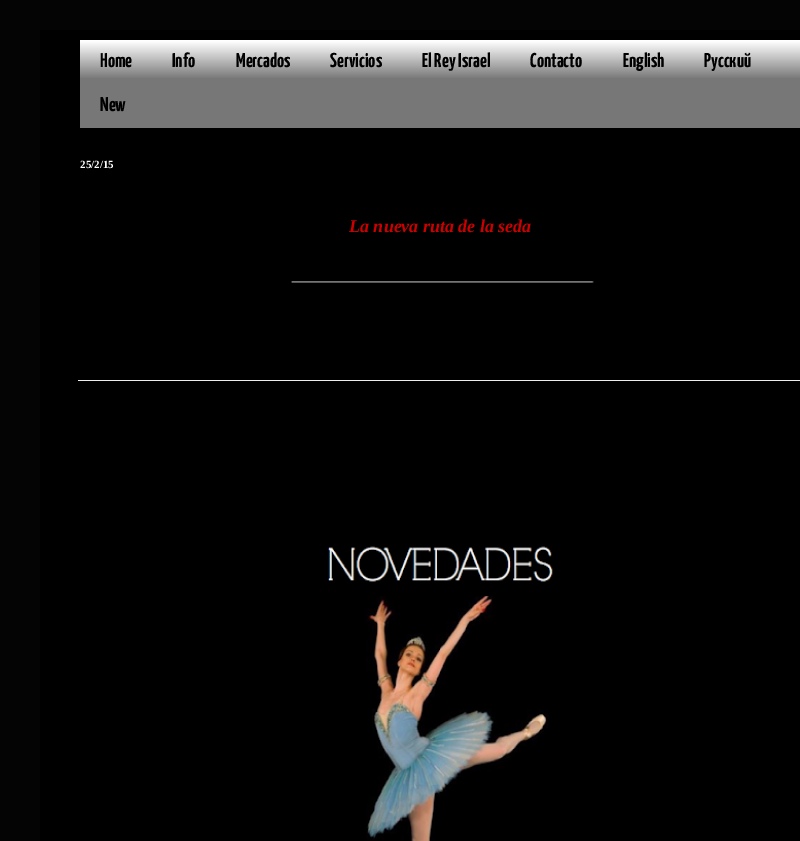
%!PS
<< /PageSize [800 841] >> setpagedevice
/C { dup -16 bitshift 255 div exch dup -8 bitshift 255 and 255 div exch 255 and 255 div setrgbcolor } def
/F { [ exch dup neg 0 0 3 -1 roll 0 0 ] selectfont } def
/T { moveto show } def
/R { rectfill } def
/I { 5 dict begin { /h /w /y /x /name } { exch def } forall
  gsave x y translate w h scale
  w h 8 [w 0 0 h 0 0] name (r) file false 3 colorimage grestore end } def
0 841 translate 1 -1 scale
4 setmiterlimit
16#050404 C
0 0 800 841 R
16#000000 C
40 30 760 811 R
16#777777 C
80 41 720 87 R
(1.rgb) 80 40 720 38 I
/YanoneKaffeesatz-ExtraLight 20 F
16#000000 C
(Home) 100 67 T
(Info) 172 67 T
(Mercados) 236 67 T
(Servicios) 330 67 T
(El Rey Israel) 422 67 T
(Contacto) 530 67 T
(English) 623 67 T
(Русский) 704 67 T
(New) 100 111 T
/LiberationSerif-Bold 11 F
16#FFFFFF C
(25/2/15) 80 168 T
/LiberationSerif-BoldItalic 18 F
16#CC0000 C
(La nueva ruta de la seda) 349 232 T
(2.rgb) 291 281 303 2 I
16#EEEEEE C
78 380 722 1 R
(3.rgb) 327 546 226 295 I
showpage
